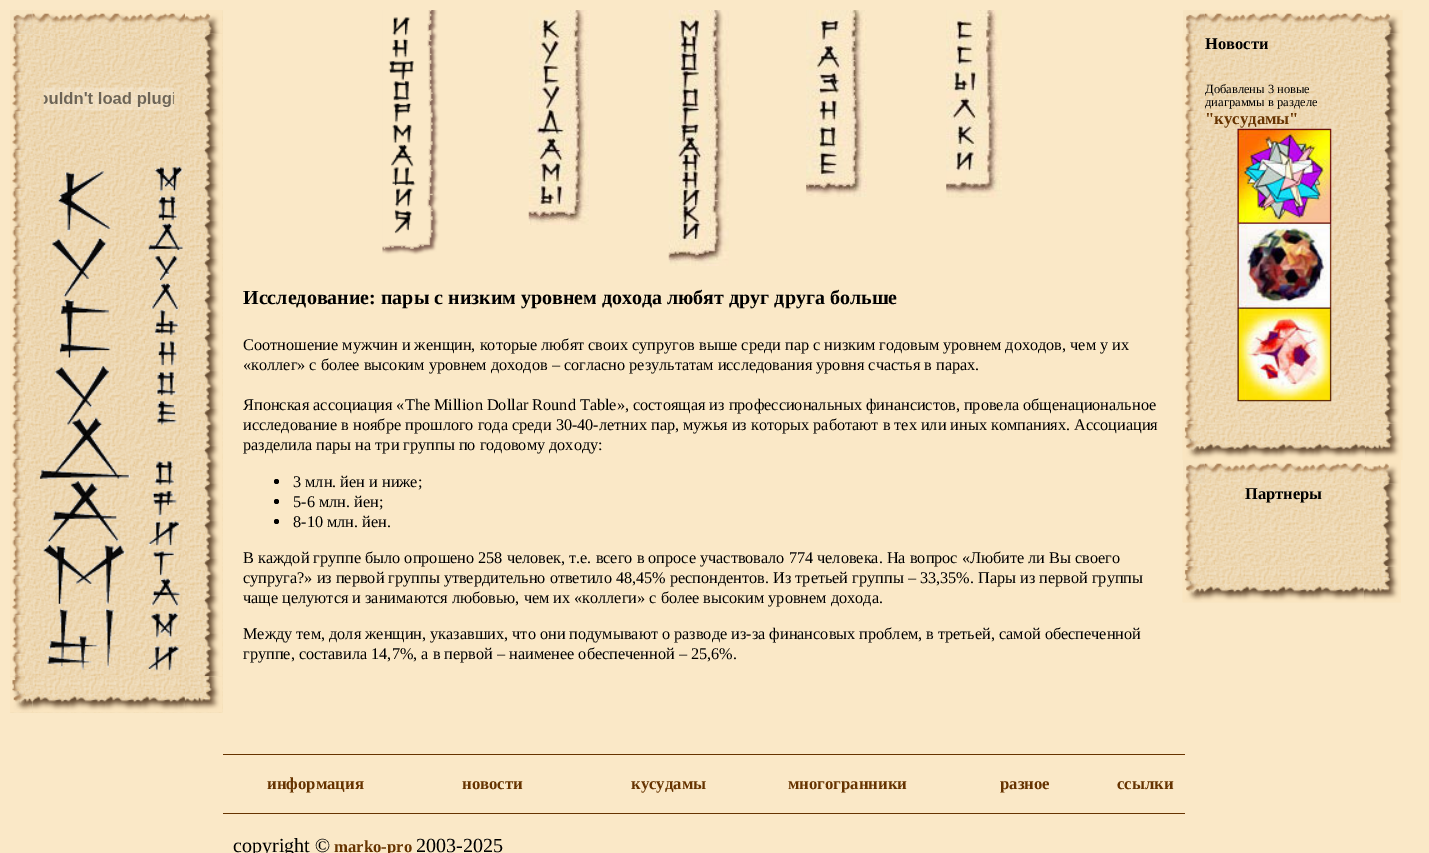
%!PS
<< /PageSize [1429 853] >> setpagedevice
/f/fill load def
/C { dup -16 bitshift 255 div exch dup -8 bitshift 255 and 255 div exch 255 and 255 div setrgbcolor } def
/F { [ exch dup neg 0 0 3 -1 roll 0 0 ] selectfont } def
/T { moveto show } def
/R { rectfill } def
/O { newpath 0 360 arc closepath } def
/I { 5 dict begin { /h /w /y /x /name } { exch def } forall
  gsave x y translate w h scale
  w h 8 [w 0 0 h 0 0] name (r) file false 3 colorimage grestore end } def
0 853 translate 1 -1 scale
4 setmiterlimit
16#FAE8C7 C
0 0 1429 853 R
/LiberationSerif-Bold 20 F
16#000000 C
(Исследование: пары с низким уровнем дохода любят друг друга больше) 243 304 T
/LiberationSerif-Regular 16.25 F
(Соотношение мужчин и женщин, которые любят своих супругов выше среди пар с низким годовым уровнем доходов, чем у их) 243 350 T
(«коллег» с более высоким уровнем доходов – согласно результатам исследования уровня счастья в парах.) 243 370 T
(Японская ассоциация «The Million Dollar Round Table», состоящая из профессиональных финансистов, провела общенациональное) 243 410 T
(исследование в ноябре прошлого года среди 30-40-летних пар, мужья из которых работают в тех или иных компаниях. Ассоциация) 243 430 T
(разделила пары на три группы по годовому доходу:) 243 450 T
276.5 481.5 2.5 O f
(3 млн. йен и ниже;) 293 487 T
276.5 501.5 2.5 O f
(5-6 млн. йен;) 293 507 T
276.5 521.5 2.5 O f
(8-10 млн. йен.) 293 527 T
(В каждой группе было опрошено 258 человек, т.е. всего в опросе участвовало 774 человека. На вопрос «Любите ли Вы своего) 243 563 T
(супруга?» из первой группы утвердительно ответило 48,45% респондентов. Из третьей группы – 33,35%. Пары из первой группы) 243 583 T
(чаще целуются и занимаются любовью, чем их «коллеги» с более высоким уровнем дохода.) 243 603 T
(Между тем, доля женщин, указавших, что они подумывают о разводе из-за финансовых проблем, в третьей, самой обеспеченной) 243 639 T
(группе, составила 14,7%, а в первой – наименее обеспеченной – 25,6%.) 243 659 T
16#663300 C
223 754 962 1 R
/LiberationSerif-Bold 16.75 F
(информация) 267 789 T
(новости) 462 789 T
(кусудамы) 631 789 T
(многогранники) 788 789 T
(разное) 1000 789 T
(ссылки) 1117 789 T
223 813 962 1 R
/LiberationSerif-Regular 20 F
16#000000 C
(copyright ©) 233 852 T
/LiberationSerif-Bold 16.75 F
16#663300 C
(marko-pro) 334 852 T
/LiberationSerif-Regular 20 F
16#000000 C
(2003-2025) 416 852 T
(1.rgb) 10 10 213 703 I
(3.rgb) 32 10 153 24 I
(5.rgb) 10 33 23 644 I
(2.rgb) 10 10 23 24 I
(7.rgb) 185 33 38 644 I
(4.rgb) 185 10 38 24 I
(6.rgb) 43 87 131 23 I
(8.rgb) 39 171 92 499 I
(9.rgb) 148 166 35 260 I
(10.rgb) 148 461 33 210 I
(12.rgb) 32 676 153 37 I
(11.rgb) 10 676 23 37 I
(13.rgb) 185 676 38 37 I
(14.rgb) 382 10 57 245 I
(15.rgb) 528 10 62 215 I
(16.rgb) 668 10 61 256 I
(17.rgb) 806 10 61 187 I
(18.rgb) 946 10 56 188 I
(22.rgb) 1182 33 23 391 I
(19.rgb) 1183 10 22 24 I
(20.rgb) 1205 10 160 24 I
(24.rgb) 1365 33 38 391 I
(21.rgb) 1365 10 38 24 I
(23.rgb) 1205 33 160 49 I
/LiberationSerif-Bold 16.5 F
(Новости) 1205 49 T
(25.rgb) 1205 81 160 48 I
/LiberationSerif-Regular 12.5 F
(Добавлены 3 новые) 1205 93 T
(диаграммы в разделе) 1205 106 T
/LiberationSerif-Bold 16.75 F
16#663300 C
("кусудамы") 1205 124 T
(26.rgb) 1205 128 160 274 I
(28.rgb) 1205 401 160 23 I
(27.rgb) 1237 128 95 274 I
(29.rgb) 1182 423 23 37 I
(30.rgb) 1205 423 160 37 I
(31.rgb) 1365 423 38 37 I
(34.rgb) 1182 483 23 84 I
(19.rgb) 1183 460 22 24 I
(32.rgb) 1205 460 159 24 I
(35.rgb) 1363 483 38 84 I
(36.rgb) 1205 483 159 49 I
(33.rgb) 1363 460 38 24 I
/LiberationSerif-Bold 16.5 F
16#000000 C
(Партнеры) 1245 499 T
(37.rgb) 1205 531 159 13 I
(38.rgb) 1205 543 159 24 I
(39.rgb) 1182 566 23 37 I
(40.rgb) 1205 566 159 37 I
(41.rgb) 1363 566 38 37 I
showpage
